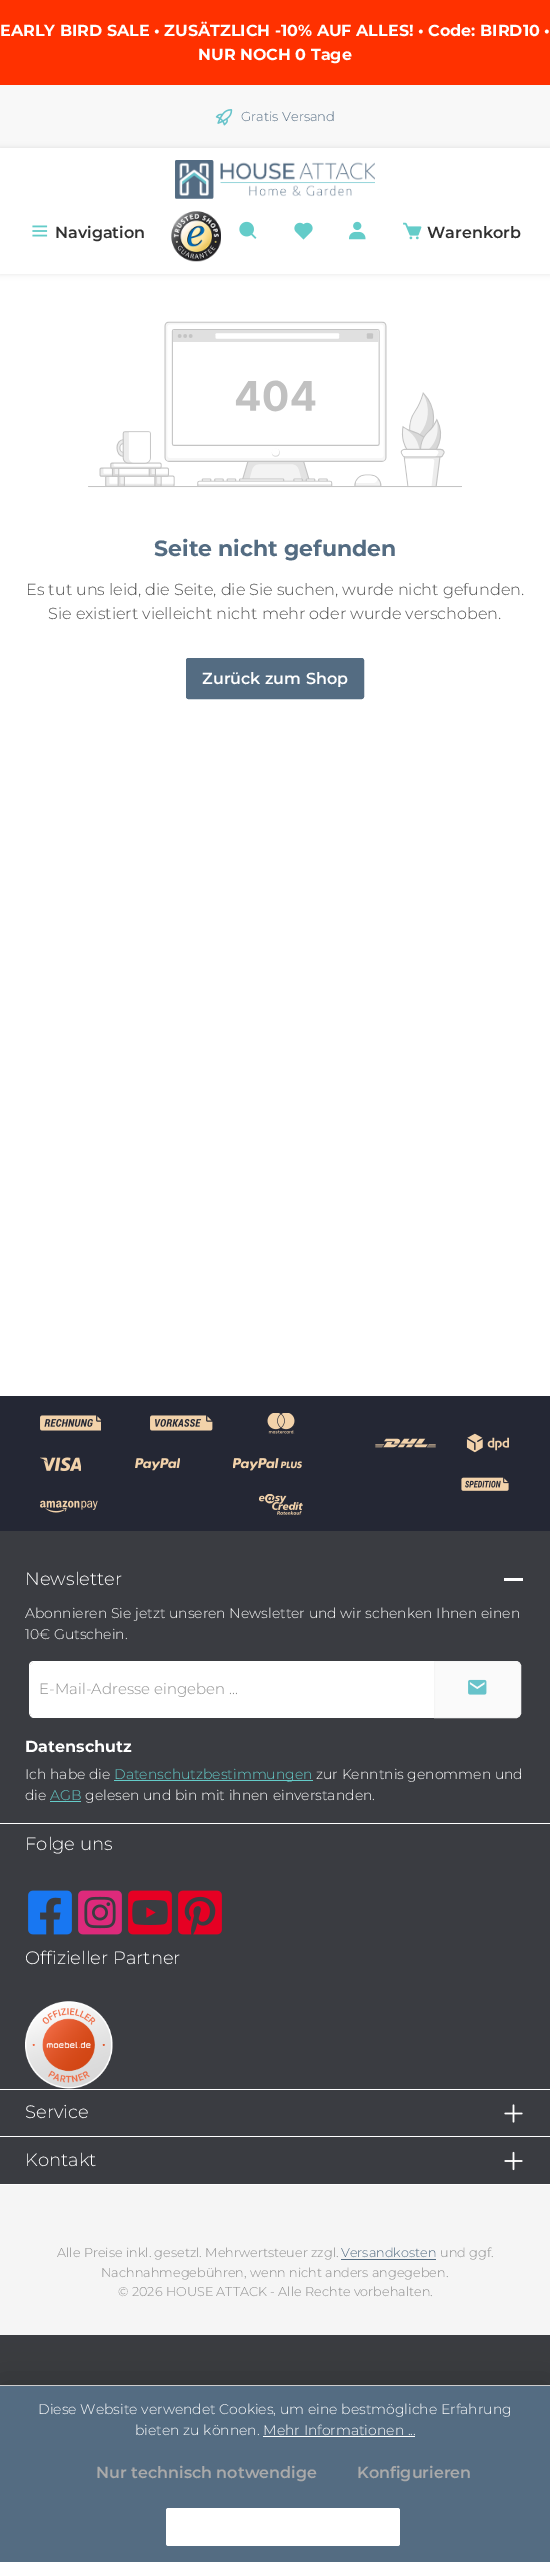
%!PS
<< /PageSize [550 2562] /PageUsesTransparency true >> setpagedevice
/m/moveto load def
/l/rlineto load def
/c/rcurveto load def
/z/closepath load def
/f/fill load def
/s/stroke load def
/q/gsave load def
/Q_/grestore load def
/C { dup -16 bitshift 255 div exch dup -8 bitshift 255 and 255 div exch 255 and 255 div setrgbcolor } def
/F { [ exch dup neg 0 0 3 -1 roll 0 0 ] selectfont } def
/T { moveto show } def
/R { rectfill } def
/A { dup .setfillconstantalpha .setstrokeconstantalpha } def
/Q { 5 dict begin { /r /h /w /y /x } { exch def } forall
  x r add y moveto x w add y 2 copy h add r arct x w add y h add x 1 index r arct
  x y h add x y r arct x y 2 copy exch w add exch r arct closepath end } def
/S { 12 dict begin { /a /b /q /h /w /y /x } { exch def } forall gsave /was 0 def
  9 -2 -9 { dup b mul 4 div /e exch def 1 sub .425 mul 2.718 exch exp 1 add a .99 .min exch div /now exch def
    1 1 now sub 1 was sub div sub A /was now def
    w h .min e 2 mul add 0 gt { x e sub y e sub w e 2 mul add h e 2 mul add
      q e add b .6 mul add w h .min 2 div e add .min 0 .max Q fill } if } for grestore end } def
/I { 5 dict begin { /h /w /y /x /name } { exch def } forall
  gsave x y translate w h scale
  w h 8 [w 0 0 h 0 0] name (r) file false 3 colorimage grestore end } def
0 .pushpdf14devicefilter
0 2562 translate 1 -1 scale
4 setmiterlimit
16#FFFFFF C
0 0 550 2562 R
16#FF3100 C
0 0 550 85 R
/Montserrat-Thin 16 F
16#FFFFFF C
(EARLY BIRD SALE • ZUSÄTZLICH -10% AUF ALLES! • Code: BIRD10 •) 0 36 T
(NUR NOCH 0 Tage) 198 60 T
16#F8F8F8 C
0 85 550 63 R
(1.rgb) 215 109 18 17 I
/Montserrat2-Thin 13 F
16#546C82 C
(Gratis Versand) 241 121 T
16#000000 C
0 148 550 126 0 3 .1 S
16#FFFFFF C
0 148 550 126 R
(2.rgb) 175 160 200 39 I
(3.rgb) 32 225 16 12 I
/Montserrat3-Thin 16 F
16#303030 C
(Navigation) 55 238 T
(4.rgb) 171 211 50 51 I
(5.rgb) 239 221 18 18 I
(6.rgb) 294 222 19 18 I
(7.rgb) 349 221 17 19 I
(8.rgb) 403 222 19 18 I
(Warenkorb) 427 238 T
(9.rgb) 88 321 374 167 I
/Montserrat-Thin 22 F
16#546C82 C
(Seite nicht gefunden) 154 556 T
/Montserrat2-Thin 16 F
16#4F4F4F C
(Es tut uns leid, die Seite, die Sie suchen, wurde nicht gefunden.) 26 595 T
(Sie existiert vielleicht nicht mehr oder wurde verschoben.) 48 619 T
16#546C82 C
186.5 658.5 177 40 2 Q q f Q_
s
/Montserrat3-Thin 16 F
16#FFFFFF C
(Zurück zum Shop) 202 684 T
16#242734 C
0 1396 550 135 R
(10.rgb) 40 1415 61 16 I
(11.rgb) 150 1415 63 16 I
(12.rgb) 267 1413 28 21 I
(13.rgb) 40 1457 41 14 I
(14.rgb) 135 1458 45 13 I
(15.rgb) 233 1458 69 13 I
(16.rgb) 40 1500 58 13 I
(17.rgb) 259 1494 44 21 I
(18.rgb) 375 1438 61 10 I
(19.rgb) 466 1433 43 20 I
(20.rgb) 461 1477 48 14 I
16#3A3C41 C
0 1531 550 854 R
16#FFFFFF C
0 1823 550 1 R
/Montserrat2-Thin 18 F
(Newsletter) 25 1585 T
504 1578 19 3 R
/Montserrat2-Thin 14 F
(Abonnieren Sie jetzt unseren Newsletter und wir schenken Ihnen einen) 25 1618 T
(10€ Gutschein.) 25 1639 T
34 1662 m 398 0 l 0 56 l -398 0 l -2 0 -4 -3 -4 -6 c 0 -46 l 0 -2 2 -4 4 -4 c z f
34 1661 m 400 0 l 0 57 l -400 0 l -3 0 -5 -3 -5 -6 c 0 -46 l 0 -3 2 -5 5 -5 c z 34 1662 m 398 0 l 0 56 l -398 0 l -2 0 -4 -3 -4 -6 c 0 -46 l 0 -2 2 -4 4 -4 c z eofill
/Montserrat2-Thin 15 F
16#8E8E8E C
(E-Mail-Adresse eingeben ...) 39 1694 T
16#FAFAFA C
434.5 1661.5 m 81.5 0 l 2.5 0 4.5 2 4.5 4.5 c 0 47 l 0 2.5 -2 4.5 -4.5 4.5 c -81.5 0 l z q f Q_
16#F5F5F5 C
s
(21.rgb) 468 1679 19 16 I
/Montserrat-Thin 16 F
16#FFFFFF C
(Datenschutz) 25 1752 T
/Montserrat2-Thin 14 F
(Ich habe die) 25 1779 T
16#64CCC9 C
114 1780 199 1 R
(Datenschutzbestimmungen) 114 1779 T
16#FFFFFF C
(zur Kenntnis genommen und) 316 1779 T
(die) 25 1800 T
16#64CCC9 C
(AGB) 50 1800 T
50 1801 31 1 R
16#FFFFFF C
(gelesen und bin mit ihnen einverstanden.) 85 1800 T
0 2089 550 1 R
/Montserrat2-Thin 18 F
(Folge uns) 25 1850 T
(22.rgb) 28 1890 44 45 I
(23.rgb) 78 1890 44 45 I
(24.rgb) 128 1890 44 45 I
(25.rgb) 178 1890 44 45 I
(Offizieller Partner) 25 1964 T
(26.rgb) 25 2001 88 88 I
0 2136 550 1 R
(Service) 25 2118 T
(27.rgb) 504 2104 19 19 I
0 2184 550 1 R
(Kontakt) 25 2166 T
(28.rgb) 504 2151 19 20 I
16#F5F5F5 C
0 2185 550 150 R
/Montserrat2-Thin 12.8 F
16#8E8E8E C
(Alle Preise inkl. gesetzl. Mehrwertsteuer zzgl.) 57 2257 T
16#546C82 C
(Versandkosten) 341 2257 T
341 2259 95 1 R
16#8E8E8E C
(und ggf.) 440 2257 T
(Nachnahmegebühren, wenn nicht anders angegeben.) 101 2277 T
(© 2026 HOUSE ATTACK - Alle Rechte vorbehalten.) 118 2296 T
16#000000 C
0 2385 550 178 0 19 .2 S
16#546C82 C
0 2386 550 176 R
16#CCCCCC C
0 2385 550 1 R
/Montserrat2-Thin 14 F
16#FFFFFF C
(Diese Website verwendet Cookies, um eine bestmögliche Erfahrung) 38 2414 T
(bieten zu können. Mehr Informationen ...) 135 2435 T
263 2436 152 1 R
/Montserrat3-Thin 16 F
16#AAAAAA C
(Nur technisch notwendige) 96 2478 T
(Konfigurieren) 357 2478 T
16#FFFFFF C
166 2508 234 38 2.5 Q f
.poppdf14devicefilter showpage
